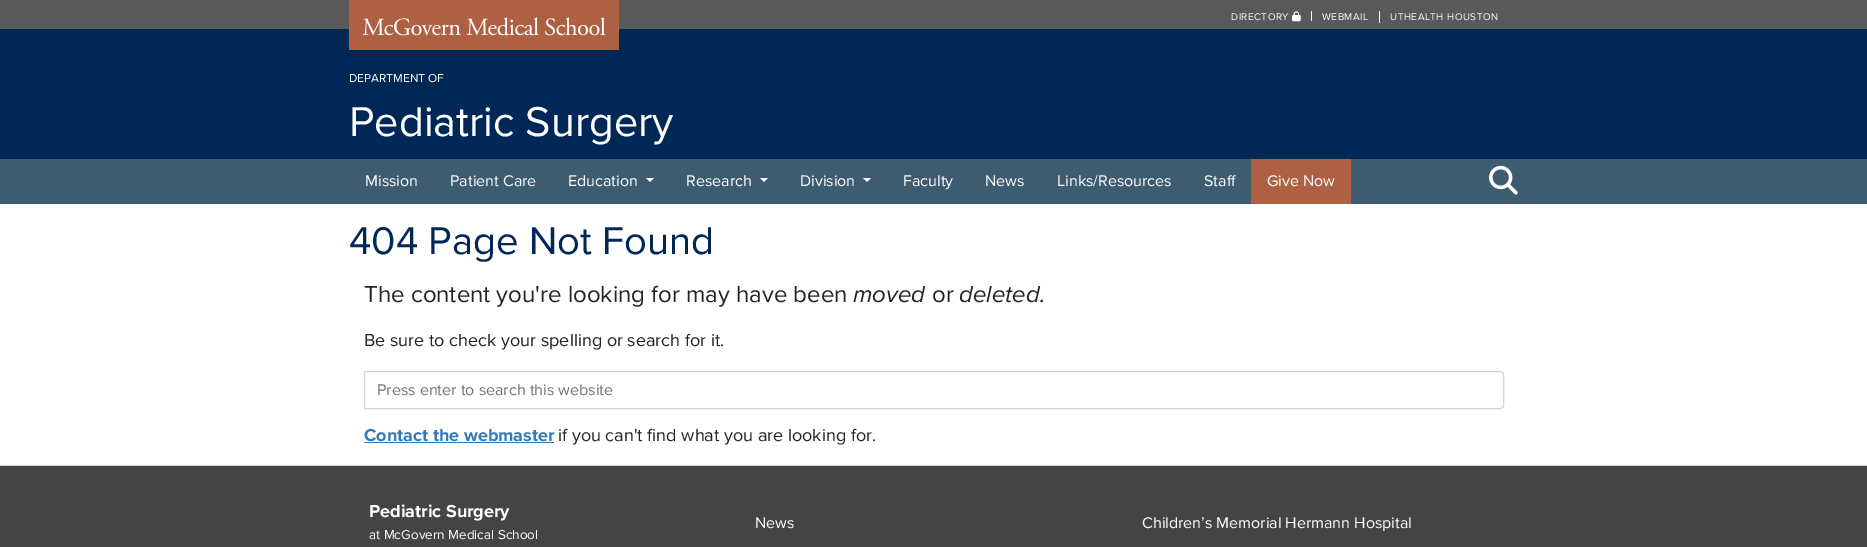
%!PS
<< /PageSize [1867 547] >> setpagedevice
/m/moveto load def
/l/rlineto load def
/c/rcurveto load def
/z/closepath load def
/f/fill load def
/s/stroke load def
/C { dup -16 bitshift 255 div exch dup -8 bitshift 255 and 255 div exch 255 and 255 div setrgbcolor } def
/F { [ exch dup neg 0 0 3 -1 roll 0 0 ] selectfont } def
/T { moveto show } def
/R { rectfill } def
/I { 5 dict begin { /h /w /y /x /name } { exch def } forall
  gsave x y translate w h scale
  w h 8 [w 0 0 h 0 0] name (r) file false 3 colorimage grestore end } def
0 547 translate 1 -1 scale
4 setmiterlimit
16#FFFFFF C
0 0 1867 547 R
16#595959 C
0 0 1867 29 R
16#002856 C
0 29 1867 130 R
16#AE6042 C
349 0 270 50 R
(1.rgb) 363 17 243 19 I
16#FFFFFF C
1311 11 1 10 R
/ProximaNova-Regular 10 F
1231 20 m .5 0 (DIRECTORY) ashow
(2.rgb) 1292 11 9 11 I
1322 20 m .5 0 (WEBMAIL) ashow
1379 11 1 12 R
1390 20 m .5 0 (UTHEALTH HOUSTON) ashow
/ProximaNova-Regular 12 F
(DEPARTMENT OF) 349 82 T
/ProximaNova-Regular 43.25 F
(Pediatric Surgery) 349 136 T
16#3E5C6F C
0 159 1867 45 R
/ProximaNova-Regular 16 F
16#FFFFFF C
(Mission) 365 186 T
(Patient Care) 450 186 T
(Education) 568 186 T
646 178 m 8 0 l -4 4 l z f
(Research) 686 186 T
760 178 m 8 0 l -4 4 l z f
(Division) 800 186 T
863 178 m 8 0 l -4 4 l z f
(Faculty) 903 186 T
(News) 985 186 T
(Links/Resources) 1057 186 T
(Staff) 1204 186 T
16#AE6042 C
1251 159 100 45 R
16#FFFFFF C
(Give Now) 1267 186 T
(3.rgb) 1489 165 29 30 I
/ProximaNova-Regular 40 F
16#002856 C
(404 Page Not Found) 349 254 T
/ProximaNova-Regular 24 F
16#212529 C
(The content you're looking for may have been) 364 302 T
/ProximaNova-Italic 24 F
(moved) 853 302 T
/ProximaNova-Regular 24 F
(or) 932 302 T
/ProximaNova-Italic 24 F
(deleted.) 959 302 T
/ProximaNova-Regular 18 F
(Be sure to check your spelling or search for it.) 364 346 T
16#CED4DA C
364.5 371.5 m 1135.5 0 l 2 0 3.5 1.5 3.5 3.5 c 0 30 l 0 2 -1.5 3.5 -3.5 3.5 c -1135.5 0 l z s
/ProximaNova-Regular 16 F
16#6C757D C
(Press enter to search this website) 377 395 T
/ProximaNova-Bold 18 F
16#337AB7 C
(Contact the webmaster) 364 441 T
364 442 190 1 R
/ProximaNova-Regular 18 F
16#212529 C
(if you can't find what you are looking for.) 558 441 T
16#444444 C
0 466 1867 81 R
16#CCCCCC C
0 465 1867 1 R
/ProximaNova-Bold 18 F
16#FFFFFF C
(Pediatric Surgery) 369 517 T
/ProximaNova-Regular 13.5 F
(at McGovern Medical School) 369 539 T
/ProximaNova-Regular 16 F
(News) 755 528 T
(Children’s Memorial Hermann Hospital) 1142 528 T
showpage
